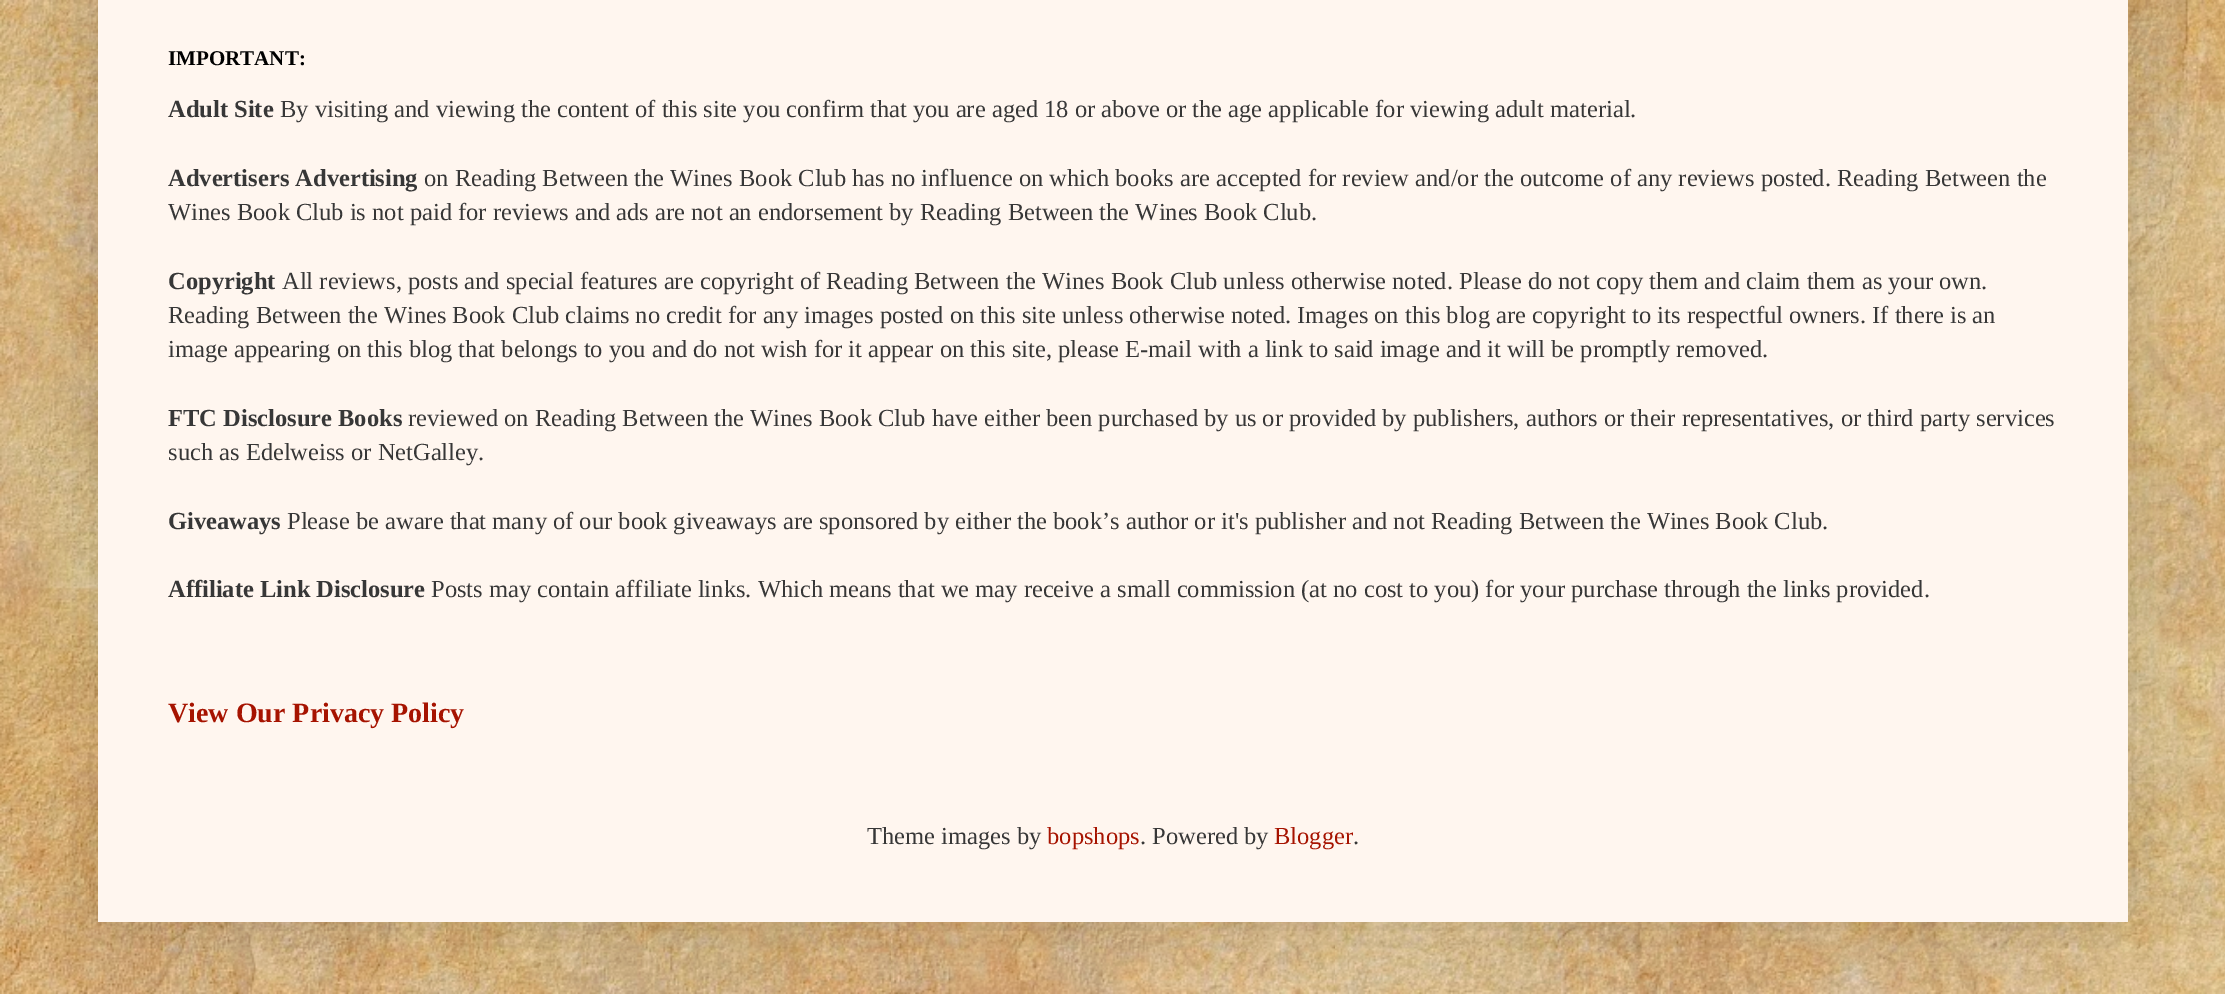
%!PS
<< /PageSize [2225 994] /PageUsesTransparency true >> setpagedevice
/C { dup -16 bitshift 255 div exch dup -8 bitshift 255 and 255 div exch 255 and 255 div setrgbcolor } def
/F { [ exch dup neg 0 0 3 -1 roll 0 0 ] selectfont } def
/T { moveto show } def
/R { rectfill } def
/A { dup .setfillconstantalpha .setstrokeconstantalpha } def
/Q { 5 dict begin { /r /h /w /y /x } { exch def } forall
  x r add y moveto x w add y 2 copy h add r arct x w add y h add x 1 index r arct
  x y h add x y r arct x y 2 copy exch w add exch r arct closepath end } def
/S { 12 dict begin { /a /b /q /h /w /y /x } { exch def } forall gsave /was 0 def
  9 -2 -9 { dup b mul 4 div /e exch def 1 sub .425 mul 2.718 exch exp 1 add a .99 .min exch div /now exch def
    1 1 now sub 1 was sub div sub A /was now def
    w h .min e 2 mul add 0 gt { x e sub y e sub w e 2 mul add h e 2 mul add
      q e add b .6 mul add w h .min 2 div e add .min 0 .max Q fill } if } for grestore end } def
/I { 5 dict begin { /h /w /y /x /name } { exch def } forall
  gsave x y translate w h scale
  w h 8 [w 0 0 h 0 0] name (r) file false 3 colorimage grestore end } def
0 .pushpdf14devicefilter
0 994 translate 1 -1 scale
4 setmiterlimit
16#FFFFFF C
0 0 2225 994 R
(1.rgb) 0 0 2225 994 I
16#000000 C
98 -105 2030 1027 0 35 .15 S
16#FFF6EF C
98 0 2030 922 R
/LiberationSerif-Bold 21 F
16#000000 C
(IMPORTANT:) 168 65 T
/LiberationSerif-Bold 24.5 F
16#373737 C
(Adult Site) 168 117 T
/LiberationSerif-Regular 24.5 F
(By visiting and viewing the content of this site you confirm that you are aged 18 or above or the age applicable for viewing adult material.) 280 117 T
/LiberationSerif-Bold 24.5 F
(Advertisers Advertising) 168 186 T
/LiberationSerif-Regular 24.5 F
(on Reading Between the Wines Book Club has no influence on which books are accepted for review and/or the outcome of any reviews posted. Reading Between the) 424 186 T
(Wines Book Club is not paid for reviews and ads are not an endorsement by Reading Between the Wines Book Club.) 168 220 T
/LiberationSerif-Bold 24.5 F
(Copyright) 168 289 T
/LiberationSerif-Regular 24.5 F
(All reviews, posts and special features are copyright of Reading Between the Wines Book Club unless otherwise noted. Please do not copy them and claim them as your own.) 282 289 T
(Reading Between the Wines Book Club claims no credit for any images posted on this site unless otherwise noted. Images on this blog are copyright to its respectful owners. If there is an) 168 323 T
(image appearing on this blog that belongs to you and do not wish for it appear on this site, please E-mail with a link to said image and it will be promptly removed.) 168 357 T
/LiberationSerif-Bold 24.5 F
(FTC Disclosure Books) 168 426 T
/LiberationSerif-Regular 24.5 F
(reviewed on Reading Between the Wines Book Club have either been purchased by us or provided by publishers, authors or their representatives, or third party services) 408 426 T
(such as Edelweiss or NetGalley.) 168 460 T
/LiberationSerif-Bold 24.5 F
(Giveaways) 168 529 T
/LiberationSerif-Regular 24.5 F
(Please be aware that many of our book giveaways are sponsored by either the book’s author or it's publisher and not Reading Between the Wines Book Club.) 287 529 T
/LiberationSerif-Bold 24.5 F
(Affiliate Link Disclosure) 168 597 T
/LiberationSerif-Regular 24.5 F
(Posts may contain affiliate links. Which means that we may receive a small commission \(at no cost to you\) for your purchase through the links provided.) 431 597 T
/LiberationSerif-Bold 28 F
16#A61300 C
(View Our Privacy Policy) 168 722 T
/LiberationSerif-Regular 24.5 F
16#373737 C
(Theme images by) 867 844 T
16#A61300 C
(bopshops) 1047 844 T
16#373737 C
(. Powered by) 1140 844 T
16#A61300 C
(Blogger) 1274 844 T
16#373737 C
(.) 1353 844 T
.poppdf14devicefilter showpage
